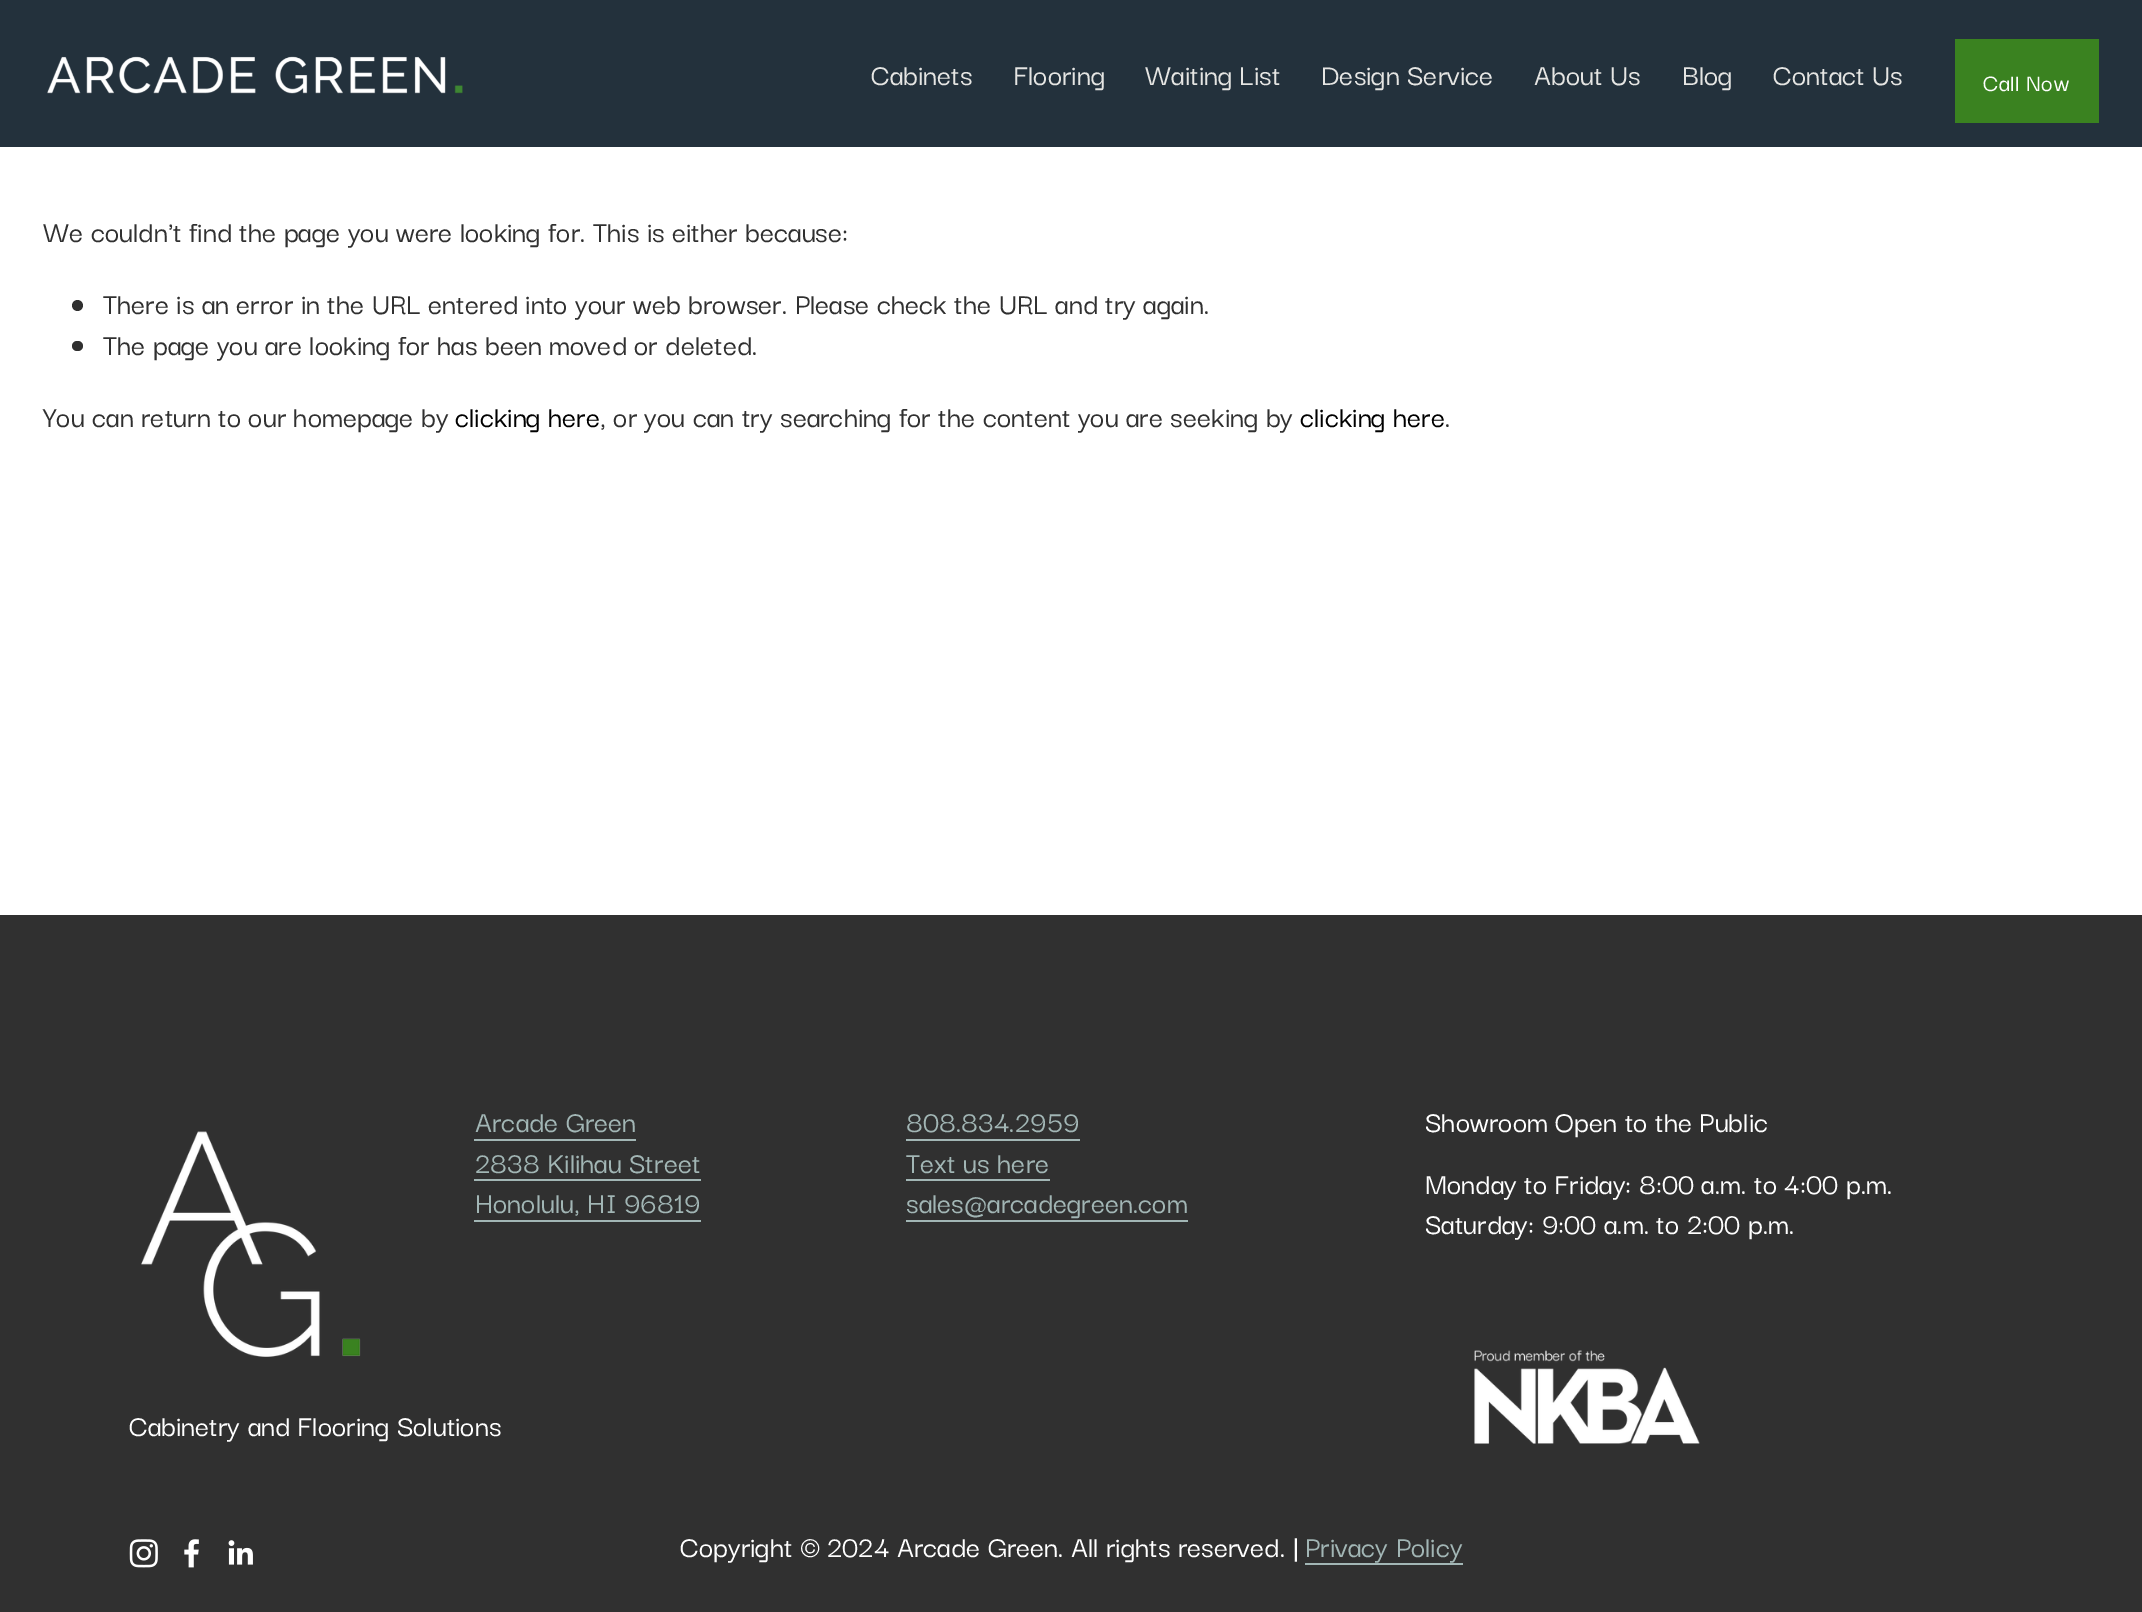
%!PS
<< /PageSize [2142 1612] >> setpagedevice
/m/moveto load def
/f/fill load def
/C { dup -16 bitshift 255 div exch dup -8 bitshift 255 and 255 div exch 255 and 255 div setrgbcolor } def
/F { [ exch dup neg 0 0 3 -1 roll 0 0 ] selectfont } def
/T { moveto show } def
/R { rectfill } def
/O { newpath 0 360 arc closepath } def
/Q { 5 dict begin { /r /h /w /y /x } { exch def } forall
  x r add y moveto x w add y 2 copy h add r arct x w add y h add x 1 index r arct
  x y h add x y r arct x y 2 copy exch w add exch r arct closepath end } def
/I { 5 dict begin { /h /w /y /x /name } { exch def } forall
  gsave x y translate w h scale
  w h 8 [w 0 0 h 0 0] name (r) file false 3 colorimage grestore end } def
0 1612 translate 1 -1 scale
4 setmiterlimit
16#FFFFFF C
0 0 2142 1612 R
16#23313C C
0 0 2142 147 R
(1.rgb) 47 56 416 38 I
/DarkerGrotesque-Medium 31.3 F
16#E5E5E3 C
(Cabinets) 871 85 T
(Flooring) 1013 85 T
(Waiting List) 1145 85 T
(Design Service) 1321 85 T
(About Us) 1534 85 T
(Blog) 1682 85 T
(Contact Us) 1773 85 T
16#3A8220 C
1955 39 144 84 R
/DarkerGrotesque-Medium 25.5 F
16#FFFFFF C
1983 91 m .5 0 (Call Now) ashow
/DarkerGrotesque-Medium 31.3 F
16#303030 C
(We couldn't find the page you were looking for. This is either because:) 43 242 T
77.5 305.5 5.5 O f
(There is an error in the URL entered into your web browser. Please check the URL and try again.) 103 314 T
72 341 11 10 5 Q f
(The page you are looking for has been moved or deleted.) 103 355 T
(You can return to our homepage by) 43 427 T
16#000000 C
(clicking here) 455 427 T
16#303030 C
(, or you can try searching for the content you are seeking by) 600 427 T
16#000000 C
(clicking here) 1300 427 T
16#303030 C
(.) 1445 427 T
0 915 2142 697 R
(2.rgb) 141 1131 220 226 I
16#A2B6B5 C
(Arcade Green) 475 1132 T
474 1139 162 2 R
(2838 Kilihau Street) 475 1173 T
474 1179 227 2 R
(Honolulu, HI 96819) 475 1213 T
474 1220 227 2 R
(808.834.2959) 906 1132 T
906 1139 174 2 R
(Text us here) 906 1173 T
906 1179 144 2 R
(sales@arcadegreen.com) 906 1213 T
906 1220 282 2 R
16#FFFFFF C
(Showroom Open to the Public) 1425 1132 T
(Monday to Friday: 8:00 a.m. to 4:00 p.m.) 1425 1194 T
(Saturday: 9:00 a.m. to 2:00 p.m.) 1425 1234 T
(Cabinetry and Flooring Solutions) 129 1436 T
(3.rgb) 1474 1350 226 94 I
(4.rgb) 129 1539 29 29 I
(5.rgb) 184 1539 15 29 I
(6.rgb) 228 1540 25 25 I
(Copyright © 2024 Arcade Green. All rights reserved. |) 680 1557 T
16#A2B6B5 C
(Privacy Policy) 1305 1557 T
1305 1563 158 2 R
showpage
